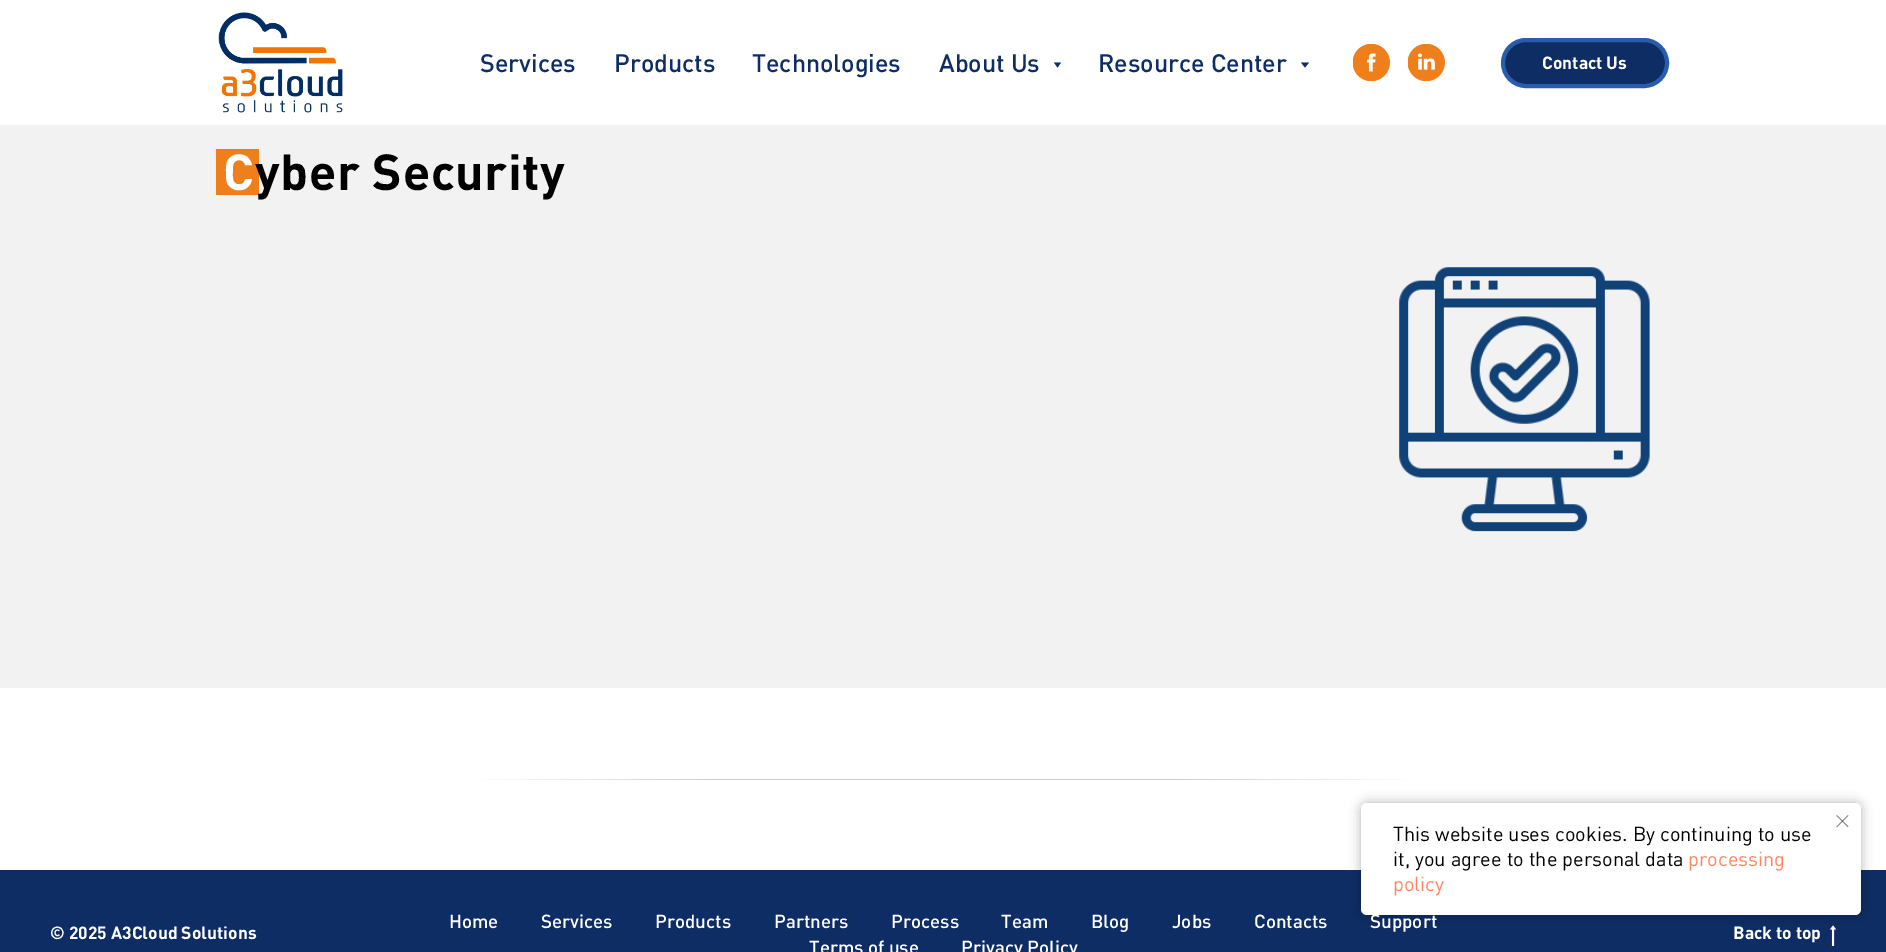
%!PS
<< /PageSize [1886 952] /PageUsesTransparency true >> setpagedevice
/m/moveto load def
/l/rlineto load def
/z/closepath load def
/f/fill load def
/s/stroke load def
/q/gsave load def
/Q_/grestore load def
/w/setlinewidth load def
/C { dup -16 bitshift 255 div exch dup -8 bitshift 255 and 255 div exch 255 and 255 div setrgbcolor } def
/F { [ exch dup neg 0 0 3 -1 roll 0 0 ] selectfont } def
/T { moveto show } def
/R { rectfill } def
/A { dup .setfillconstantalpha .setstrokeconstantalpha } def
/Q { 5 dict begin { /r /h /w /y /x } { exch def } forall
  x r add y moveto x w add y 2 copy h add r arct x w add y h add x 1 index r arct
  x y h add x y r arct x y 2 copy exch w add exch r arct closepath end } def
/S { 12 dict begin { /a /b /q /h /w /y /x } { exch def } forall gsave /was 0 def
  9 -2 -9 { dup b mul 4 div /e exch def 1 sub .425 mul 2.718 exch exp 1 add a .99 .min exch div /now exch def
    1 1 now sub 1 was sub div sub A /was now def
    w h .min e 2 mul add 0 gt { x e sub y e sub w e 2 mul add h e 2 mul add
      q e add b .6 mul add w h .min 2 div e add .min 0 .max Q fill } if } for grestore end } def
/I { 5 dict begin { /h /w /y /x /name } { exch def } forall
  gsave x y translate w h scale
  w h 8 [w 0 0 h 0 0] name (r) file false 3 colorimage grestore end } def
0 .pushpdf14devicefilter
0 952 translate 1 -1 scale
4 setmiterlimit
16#FFFFFF C
0 0 1886 952 R
(1.rgb) 218 12 125 101 I
/DIN-Medium 25 F
16#0E2D64 C
(Services) 480 72 T
(Products) 614 72 T
(Technologies) 752 72 T
(About Us) 939 72 T
1054 62.5 m 7 0 l -3.5 5 l z f
(Resource Center) 1098 72 T
1301 62.5 m 8 0 l -4 5 l z f
(2.rgb) 1353 44 37 37 I
(3.rgb) 1408 44 37 37 I
1503 40 164 46 23 Q q f Q_
16#295DAB C
4 w
s
/DIN-Bold 17.5 F
16#FFFFFF C
(Contact Us) 1542 69 T
16#F2F2F2 C
0 125 1886 563 R
16#EF7F1A C
216 149 43 46 R
/DIN-Bold 50 F
16#FFFFFF C
223 190 m .6 0 (C) ashow
16#000000 C
255 190 m .6 0 (yber Security) ashow
(4.rgb) 1399 267 251 265 I
q 481 779 m 238 0 l 0 1 l -238 0 l z clip newpath
<< /ShadingType 2 /ColorSpace /DeviceRGB /Coords [719 779 469 779] /Extend [true true] /Function << /FunctionType 2 /Domain [0 1] /C0 [.8 .8 .8] /C1 [1 1 1] /N 1 >> >> shfill Q_
16#CCCCCC C
719 779 450 1 R
q 1169 779 m 238 0 l 0 1 l -238 0 l z clip newpath
<< /ShadingType 2 /ColorSpace /DeviceRGB /Coords [1169 779 1419 779] /Extend [true true] /Function << /FunctionType 2 /Domain [0 1] /C0 [.8 .8 .8] /C1 [1 1 1] /N 1 >> >> shfill Q_
16#0E2D64 C
0 870 1886 82 R
(6.rgb) 1830 925 6 21 I
16#000000 C
1361 803 500 112 6 6 .3 S
16#FFFFFF C
1361 803 500 112 6 Q f
(5.rgb) 1836 815 13 13 I
/DIN-Regular 20 F
16#000000 C
(This website uses cookies. By continuing to use) 1393 841 T
(it, you agree to the personal data) 1393 866 T
16#FF8562 C
(processing) 1688 866 T
(policy) 1393 891 T
/DIN-Bold 17.5 F
16#FFFFFF C
(© 2025 А3Сloud Solutions) 50 939 T
/DIN-Medium 18.75 F
(Home) 449 928 T
(Services) 541 928 T
(Products) 655 928 T
(Partners) 774 928 T
(Process) 891 928 T
(Team) 1001 928 T
(Blog) 1091 928 T
(Jobs) 1172 928 T
(Contacts) 1254 928 T
(Support) 1370 928 T
(Terms of use) 809 954 T
(Privacy Policy) 961 954 T
/DIN-Bold 17.5 F
(Back to top) 1733 939 T
.poppdf14devicefilter showpage
